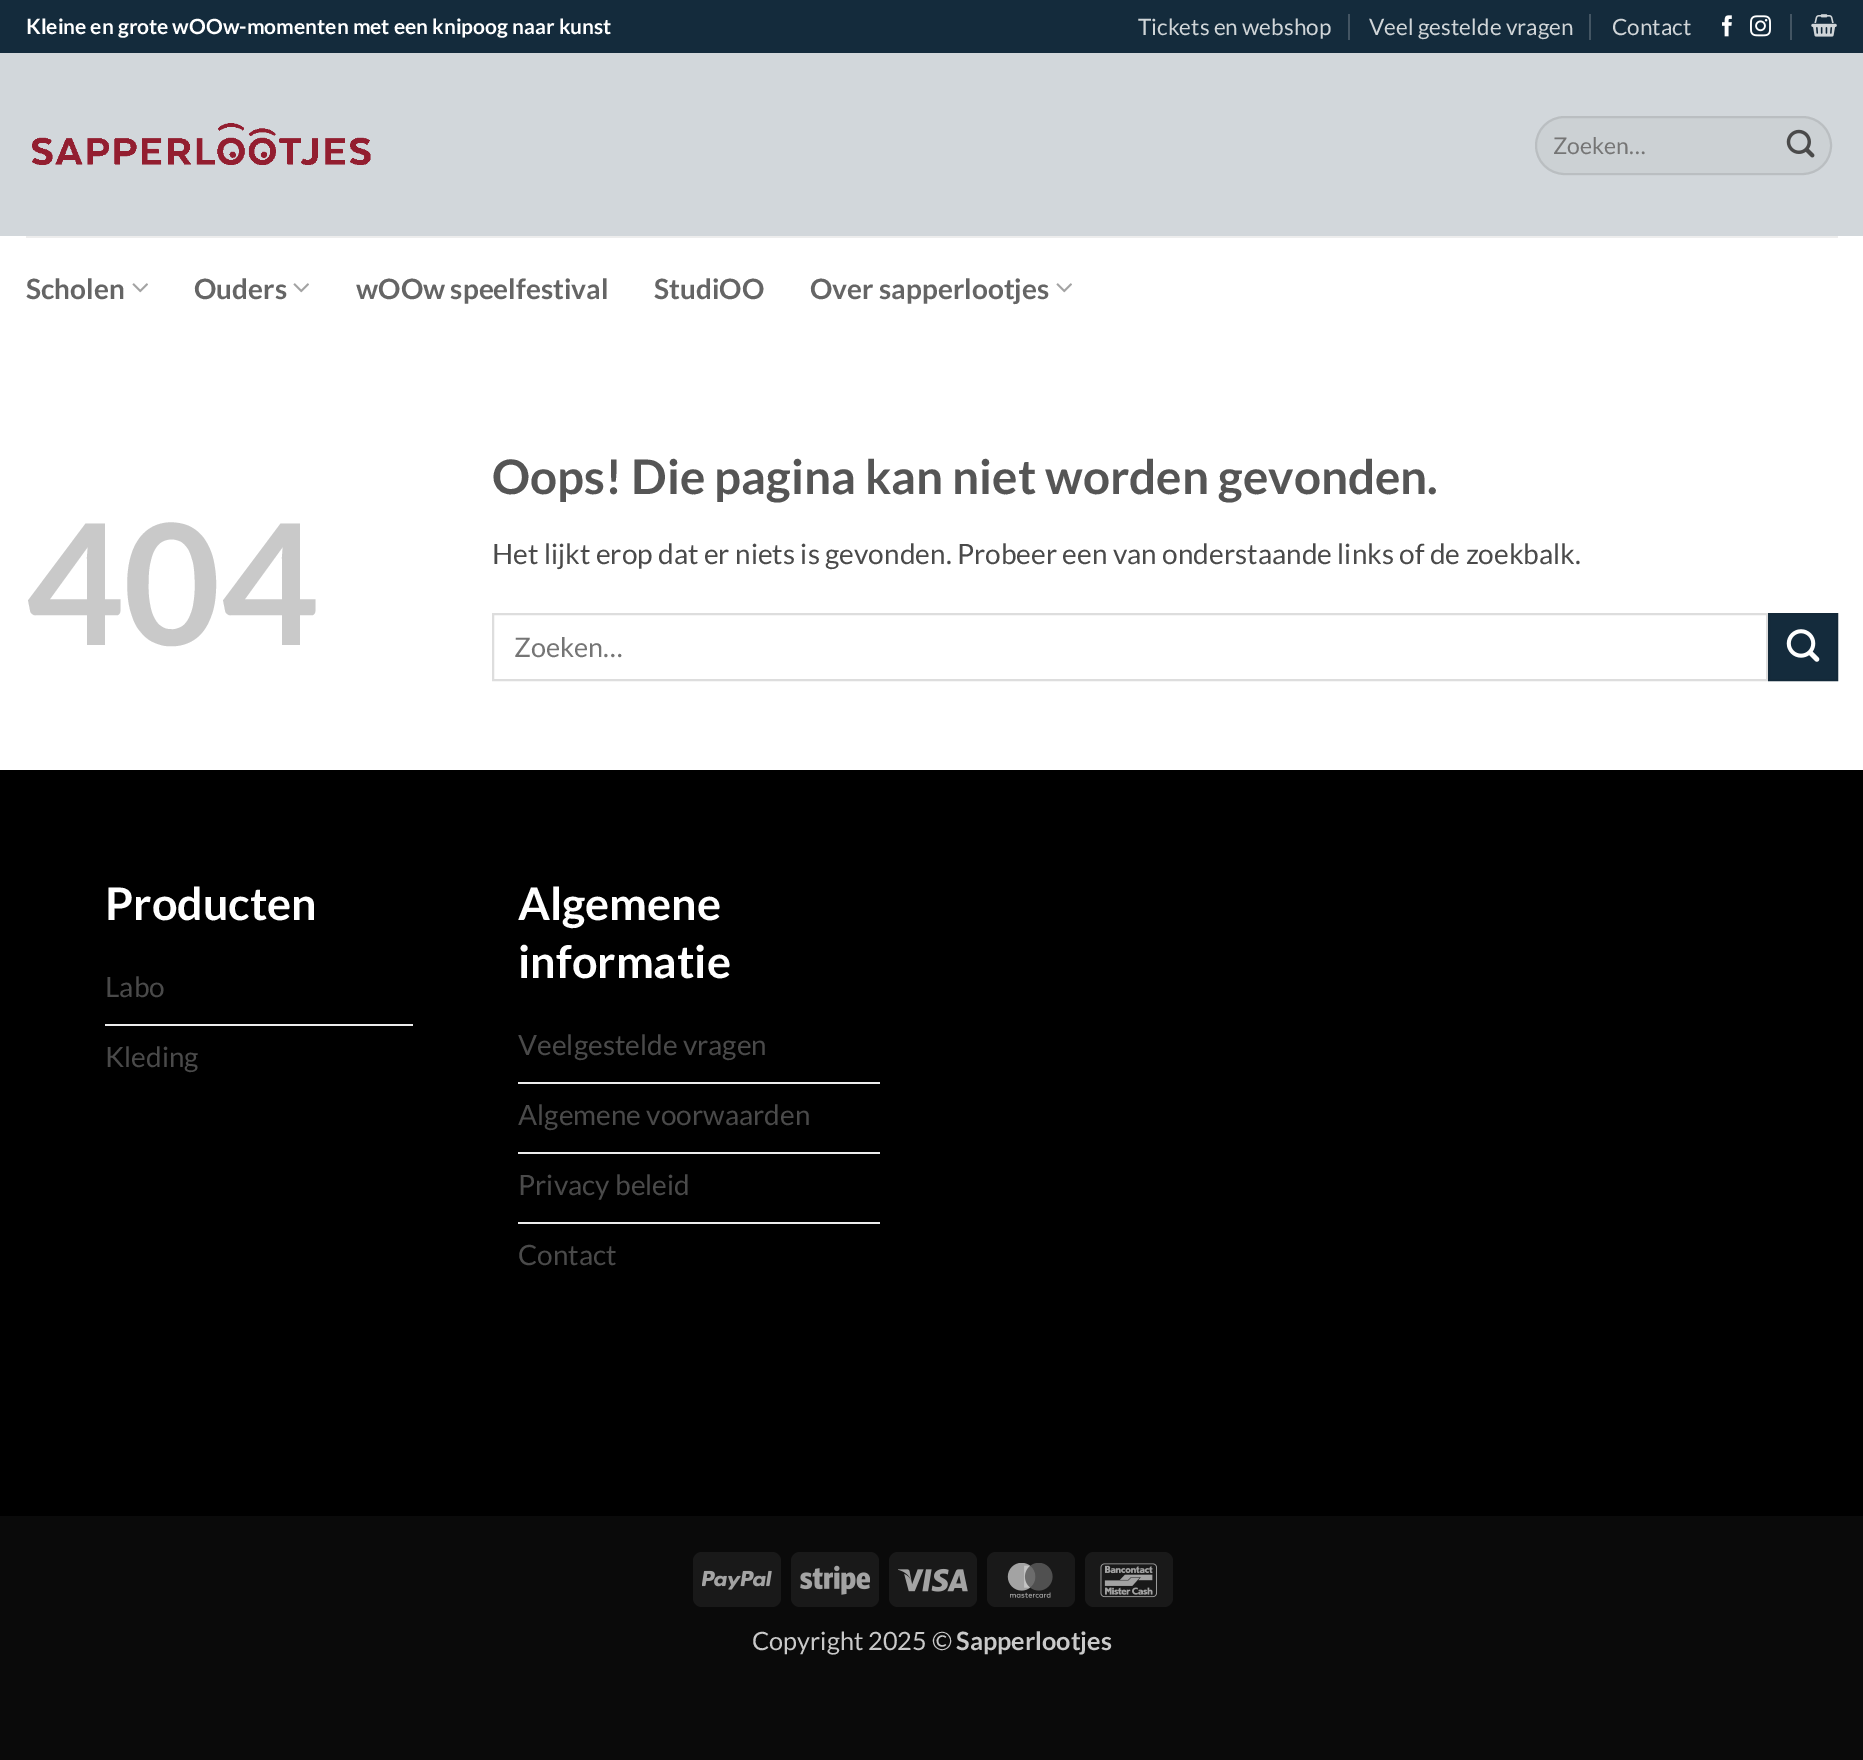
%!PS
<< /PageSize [1863 1760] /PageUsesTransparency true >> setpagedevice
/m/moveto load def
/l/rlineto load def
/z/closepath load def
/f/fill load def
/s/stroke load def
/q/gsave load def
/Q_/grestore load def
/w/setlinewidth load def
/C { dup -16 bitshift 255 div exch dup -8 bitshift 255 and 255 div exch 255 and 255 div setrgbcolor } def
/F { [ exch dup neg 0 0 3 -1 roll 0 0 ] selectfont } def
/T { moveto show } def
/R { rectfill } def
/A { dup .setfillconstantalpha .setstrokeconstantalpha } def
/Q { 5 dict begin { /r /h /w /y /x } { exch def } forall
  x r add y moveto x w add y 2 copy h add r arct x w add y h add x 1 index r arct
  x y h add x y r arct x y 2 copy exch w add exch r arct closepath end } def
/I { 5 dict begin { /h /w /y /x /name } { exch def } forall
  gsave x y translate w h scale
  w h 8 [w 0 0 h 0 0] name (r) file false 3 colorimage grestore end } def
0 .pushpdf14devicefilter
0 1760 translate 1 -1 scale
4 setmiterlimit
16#0A0A0A C
0 0 1863 1760 R
16#FFFFFF C
0 236 1863 534 R
16#142B3C C
0 0 1863 53 R
/Lato-Bold 21 F
16#FFFFFF C
(Kleine en grote wOOw-momenten met een knipoog naar kunst) 26 34 T
/Lato-Regular 22.5 F
16#D0D5D8 C
(Tickets en webshop) 1138 35 T
16#435563 C
1348 14 2 26 R
16#D0D5D8 C
(Veel gestelde vragen) 1369 35 T
16#435563 C
1589 14 2 26 R
16#D0D5D8 C
(Contact) 1612 35 T
(1.rgb) 1722 15 10 22 I
(2.rgb) 1750 15 21 22 I
16#435563 C
1790 14 2 26 R
(3.rgb) 1811 14 26 23 I
16#D2D7DB C
0 53 1863 183 R
(4.rgb) 32 123 339 42 I
16#CCD1D4 C
1535 116 297 59 29.5 Q f
0.09 A
16#000000 C
2 w
1536 117 295 57 28.5 Q s
/Lato-Regular 23 F
1 A
16#757575 C
(Zoeken…) 1553 154 T
(5.rgb) 1786 129 29 29 I
16#EDEDED C
26 236 1812 2 R
/Lato-Bold 28 F
16#656565 C
(Scholen) 26 299 T
(6.rgb) 132 283 16 10 I
(Ouders) 194 299 T
(6.rgb) 293 283 16 10 I
(wOOw speelfestival) 356 299 T
(StudiOO) 654 299 T
(Over sapperlootjes) 810 299 T
(6.rgb) 1056 283 16 10 I
/Lato-Bold 168 F
16#C9C9C9 C
(404) 26 645 T
/Lato-Bold 47.6 F
16#555555 C
(Oops! Die pagina kan niet worden gevonden.) 492 494 T
/Lato-Regular 28 F
16#4A4A4A C
(Het lijkt erop dat er niets is gevonden. Probeer een van onderstaande links of de zoekbalk.) 492 564 T
16#DDDDDD C
493 614 1274 66 rectstroke
/Lato-Regular 27 F
16#757575 C
(Zoeken…) 514 657 T
16#142B3C C
1769 614 m 68 0 l 0 66 l -68 0 l z q f Q_
16#132939 C
s
(7.rgb) 1786 629 34 33 I
16#000000 C
0 770 1863 746 R
/Lato-Bold 45 F
16#FFFFFF C
(Producten) 105 920 T
16#ECECEC C
105 1024 308 2 R
/Lato-Regular 28 F
16#4A4A4A C
(Labo) 105 997 T
(Kleding) 105 1067 T
/Lato-Bold 45 F
16#FFFFFF C
(Algemene) 518 920 T
(informatie) 518 978 T
16#ECECEC C
518 1082 362 2 R
/Lato-Regular 28 F
16#4A4A4A C
(Veelgestelde vragen) 518 1055 T
16#ECECEC C
518 1152 362 2 R
16#4A4A4A C
(Algemene voorwaarden) 518 1125 T
16#ECECEC C
518 1222 362 2 R
16#4A4A4A C
(Privacy beleid) 518 1195 T
(Contact) 518 1265 T
16#191919 C
693 1552 88 55 9 Q f
(8.rgb) 702 1570 70 20 I
791 1552 88 55 9 Q f
(9.rgb) 800 1565 70 30 I
889 1552 88 55 9 Q f
(10.rgb) 898 1568 70 24 I
987 1552 88 55 9 Q f
(11.rgb) 1007 1563 46 35 I
1085 1552 88 55 9 Q f
(12.rgb) 1100 1563 57 35 I
/Lato-Regular 25.25 F
16#C9C9C9 C
(Copyright 2025 ©) 752 1650 T
/Lato-Bold 25.25 F
(Sapperlootjes) 956 1650 T
.poppdf14devicefilter showpage
